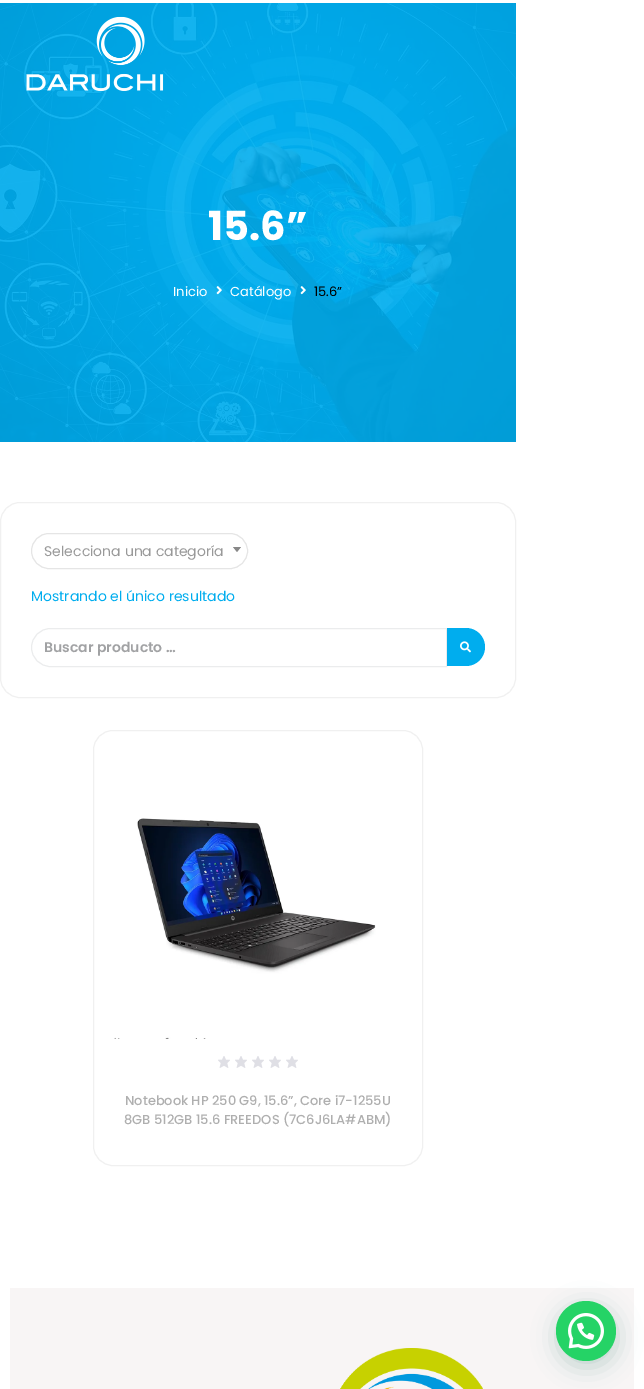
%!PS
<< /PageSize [644 1389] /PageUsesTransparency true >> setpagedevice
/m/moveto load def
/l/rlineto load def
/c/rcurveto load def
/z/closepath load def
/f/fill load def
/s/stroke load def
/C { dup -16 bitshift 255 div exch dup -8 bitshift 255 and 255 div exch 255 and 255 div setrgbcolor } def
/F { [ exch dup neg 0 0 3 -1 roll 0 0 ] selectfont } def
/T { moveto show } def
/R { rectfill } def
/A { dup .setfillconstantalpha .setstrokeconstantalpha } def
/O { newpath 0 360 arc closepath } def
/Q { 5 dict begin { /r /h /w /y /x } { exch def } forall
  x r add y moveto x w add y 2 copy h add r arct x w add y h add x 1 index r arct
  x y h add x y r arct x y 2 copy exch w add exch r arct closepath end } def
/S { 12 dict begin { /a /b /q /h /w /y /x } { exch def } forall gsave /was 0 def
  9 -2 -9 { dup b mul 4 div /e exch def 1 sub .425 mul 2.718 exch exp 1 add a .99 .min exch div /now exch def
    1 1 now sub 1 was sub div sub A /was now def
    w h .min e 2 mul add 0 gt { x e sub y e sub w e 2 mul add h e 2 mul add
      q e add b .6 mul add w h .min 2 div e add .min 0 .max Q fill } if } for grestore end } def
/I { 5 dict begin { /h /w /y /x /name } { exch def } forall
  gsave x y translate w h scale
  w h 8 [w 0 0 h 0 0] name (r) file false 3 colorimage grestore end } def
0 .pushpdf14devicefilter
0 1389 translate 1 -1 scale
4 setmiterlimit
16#FFFFFF C
0 0 644 1389 R
(2.rgb) 0 3 516 439 I
(1.rgb) 26 16 138 75 I
/Poppins-Bold 40 F
(15.6”) 208 240 T
/Poppins-Regular 13 F
(Inicio) 173 296 T
(3.rgb) 216 286 6 9 I
(Catálogo) 230 296 T
(4.rgb) 300 286 6 9 I
16#000000 C
(15.6”) 314 296 T
0.11 A
16#7A7A7A C
.5 502.5 515 195 19.5 Q s
1 A
16#E5E5E5 C
31.5 533.5 216 35 17.5 Q s
/Poppins-Regular 14 F
16#999999 C
(Selecciona una categoría) 44 556 T
16#888888 C
233 547 m 8 0 l -4 5 l z f
16#00ADEE C
(Mostrando el único resultado) 31 601 T
16#EBECED C
50.5 628.5 m 396 0 l 0 38 l -396 0 l -10.5 0 -19 -8.5 -19 -19 c 0 -10.5 8.5 -19 19 -19 c z s
/Poppins-SemiBold 14 F
16#A1A2A4 C
(Buscar producto …) 44 652 T
16#00ADEE C
447 628 m 19 0 l 10.5 0 19 8.5 19 19 c 0 10.5 -8.5 19 -19 19 c -19 0 l z f
(5.rgb) 460 641 11 12 I
0.11 A
16#7A7A7A C
93.5 730.5 329 435 19.5 Q s
1 A
(6.rgb) 114 818 262 221 I
(7.rgb) 218 1056 12 12 I
(7.rgb) 235 1056 12 12 I
(7.rgb) 252 1056 12 12 I
(7.rgb) 269 1056 12 12 I
(7.rgb) 286 1056 12 12 I
/Poppins-Medium 13 F
16#AFAFAF C
(Notebook HP 250 G9, 15.6”, Core i7-1255U) 125 1105 T
(8GB 512GB 15.6 FREEDOS \(7C6J6LA#ABM\)) 124 1124 T
16#F8F5F5 C
10 1288 624 101 R
(8.rgb) 340 1348 143 41 I
16#075E54 C
557 1307 60 60 30 12 .24 S
16#25D366 C
586 1331 30 O f
(9.rgb) 568 1313 36 36 I
.poppdf14devicefilter showpage
